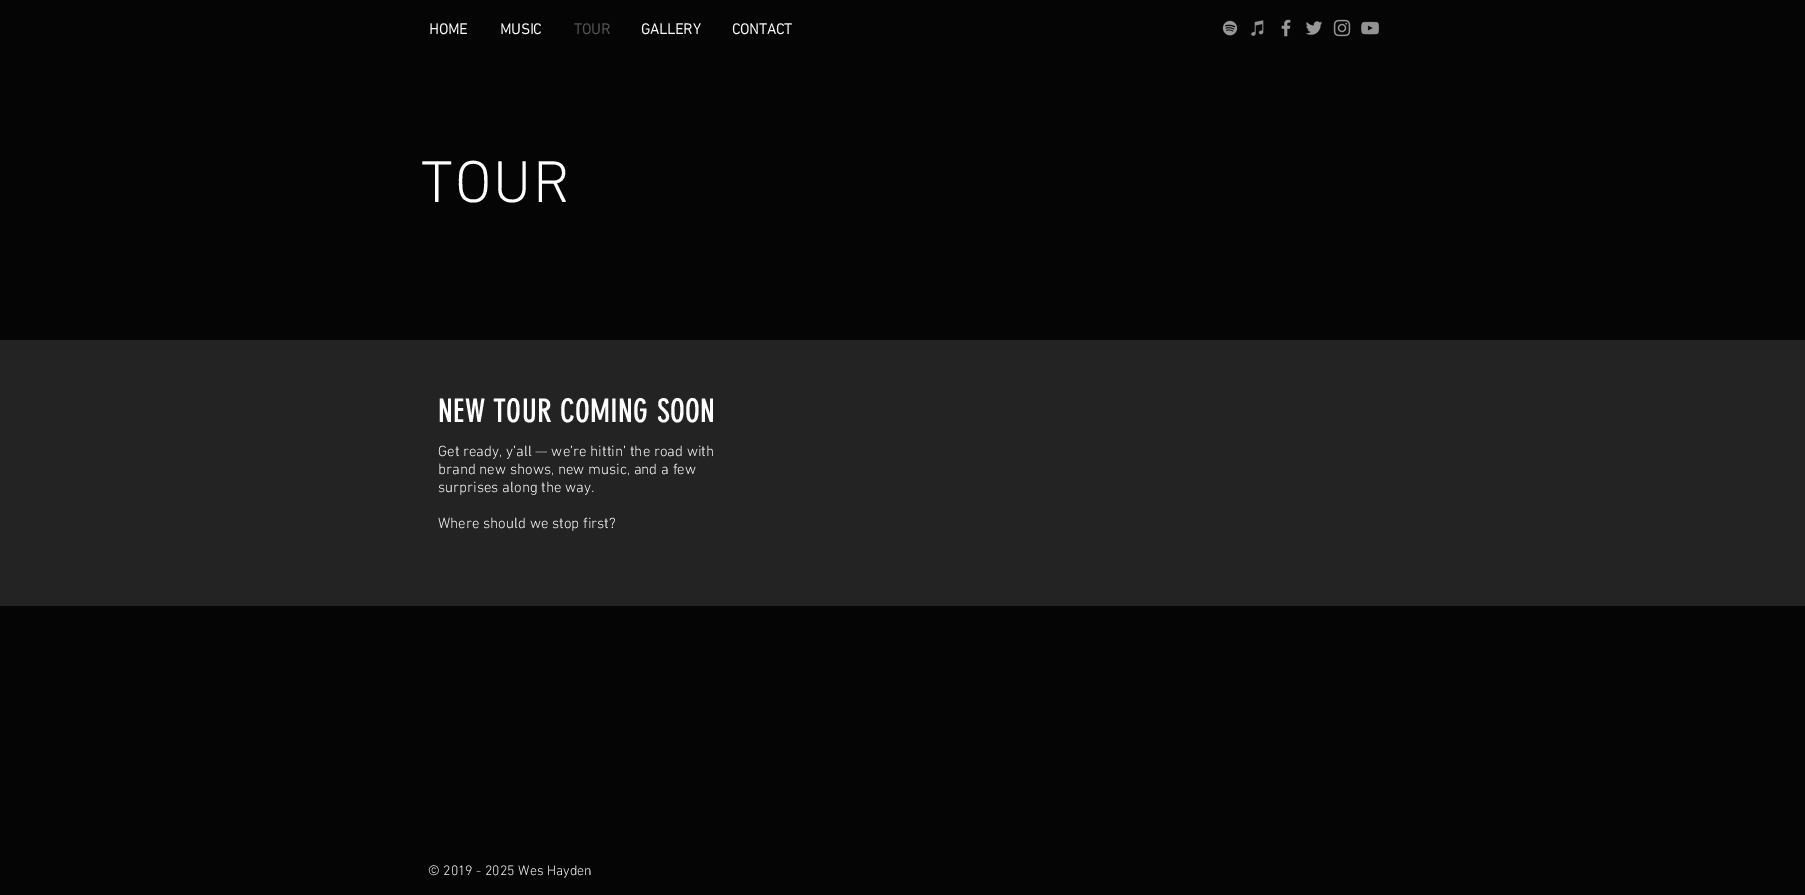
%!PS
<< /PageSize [1805 895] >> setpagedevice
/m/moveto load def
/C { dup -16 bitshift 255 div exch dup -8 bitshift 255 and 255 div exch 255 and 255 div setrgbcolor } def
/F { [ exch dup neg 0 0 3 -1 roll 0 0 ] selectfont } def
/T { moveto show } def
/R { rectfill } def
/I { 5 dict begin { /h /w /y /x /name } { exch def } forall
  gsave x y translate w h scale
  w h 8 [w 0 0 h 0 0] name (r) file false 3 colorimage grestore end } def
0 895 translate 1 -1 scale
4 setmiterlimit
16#050505 C
0 0 1805 895 R
/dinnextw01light-Bold 15 F
16#FFFFFF C
(HOME) 429 34 T
(MUSIC) 500 34 T
16#555555 C
(TOUR) 574 34 T
16#FFFFFF C
(GALLERY) 641 34 T
(CONTACT) 732 34 T
(1.rgb) 1222 20 16 16 I
(2.rgb) 1251 20 13 16 I
(3.rgb) 1281 19 10 18 I
(4.rgb) 1306 21 16 14 I
(5.rgb) 1333 19 18 18 I
(6.rgb) 1361 21 19 14 I
/dinnextw01light-Light 60 F
421 202 m 2 0 (TOUR) ashow
16#242323 C
0 340 1805 266 R
/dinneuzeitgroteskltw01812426-Regular 32 F
16#FFFFFF C
438 422 m .3 0 (NEW TOUR COMING SOON) ashow
/dinnextw01light-Light 15 F
(Get ready, y’all — we’re hittin’ the road with) 438 456 T
(brand new shows, new music, and a few) 438 474 T
(surprises along the way.) 438 492 T
(Where should we stop first?) 438 528 T
/dinnextw01light-Light 14 F
(© 2019 - 2025 Wes Hayden) 428 875 T
showpage
